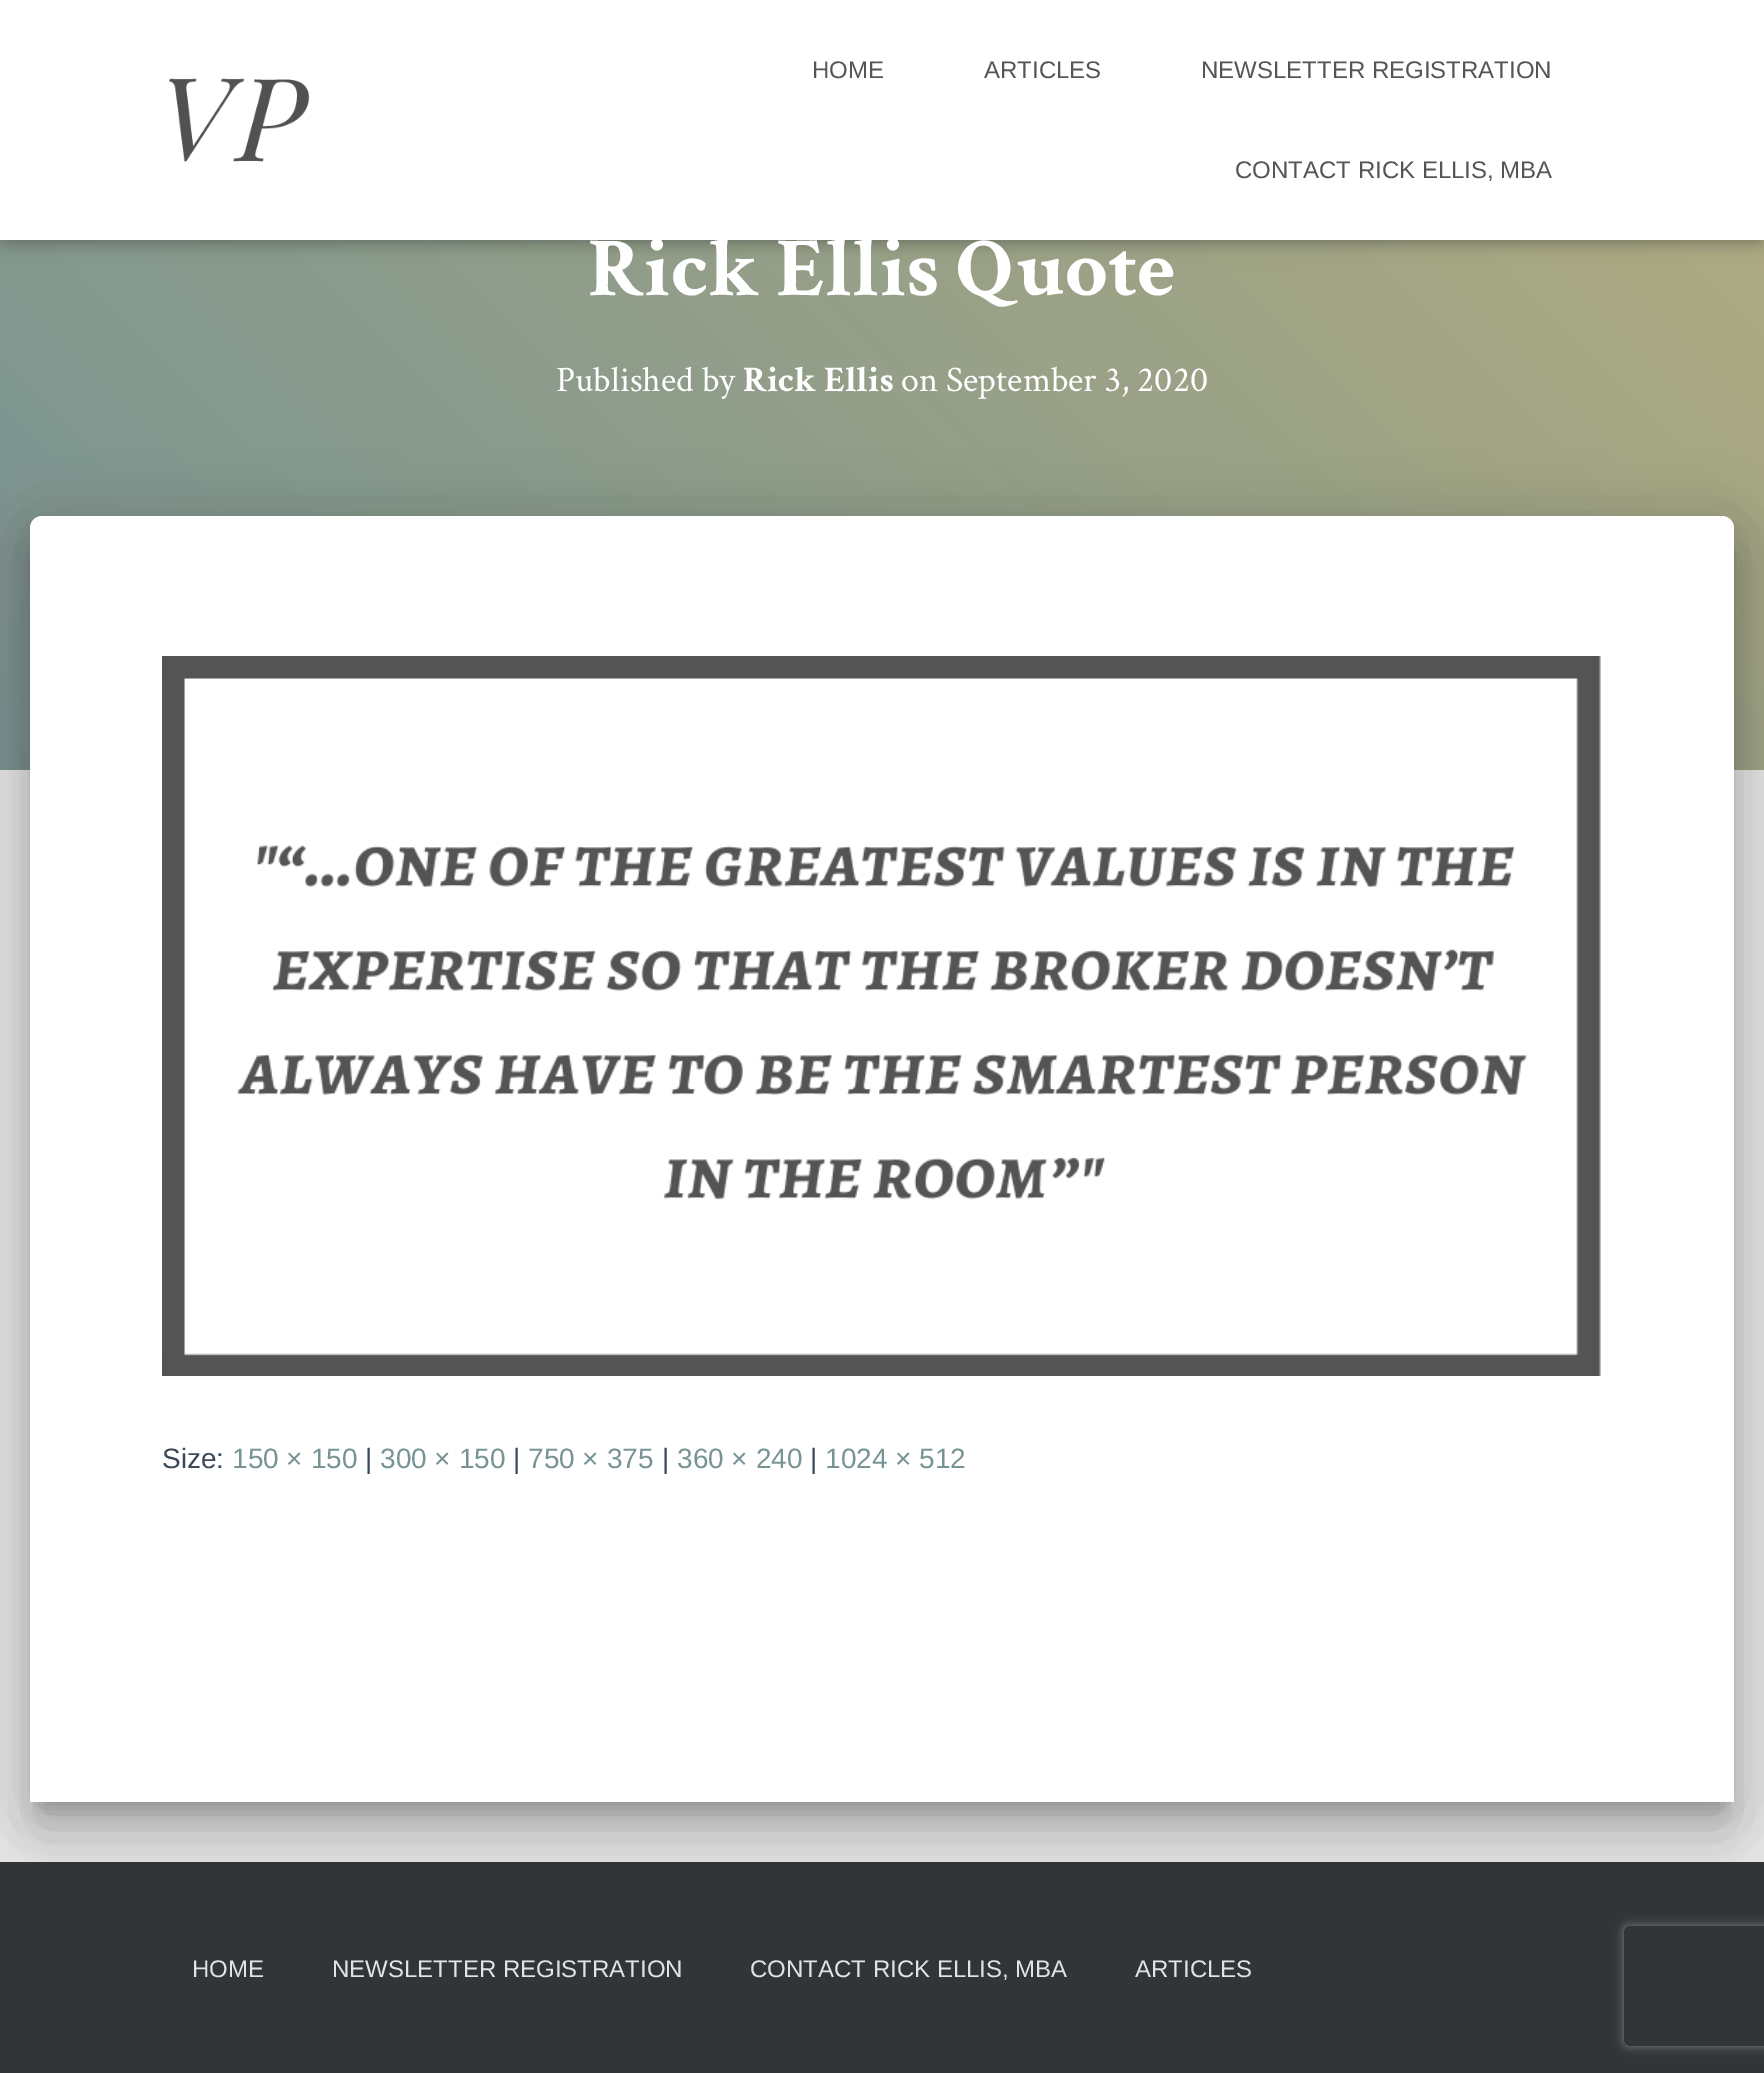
%!PS
<< /PageSize [1764 2073] /PageUsesTransparency true >> setpagedevice
/m/moveto load def
/l/rlineto load def
/c/rcurveto load def
/z/closepath load def
/f/fill load def
/q/gsave load def
/Q_/grestore load def
/C { dup -16 bitshift 255 div exch dup -8 bitshift 255 and 255 div exch 255 and 255 div setrgbcolor } def
/F { [ exch dup neg 0 0 3 -1 roll 0 0 ] selectfont } def
/T { moveto show } def
/R { rectfill } def
/A { dup .setfillconstantalpha .setstrokeconstantalpha } def
/Q { 5 dict begin { /r /h /w /y /x } { exch def } forall
  x r add y moveto x w add y 2 copy h add r arct x w add y h add x 1 index r arct
  x y h add x y r arct x y 2 copy exch w add exch r arct closepath end } def
/S { 12 dict begin { /a /b /q /h /w /y /x } { exch def } forall gsave /was 0 def
  9 -2 -9 { dup b mul 4 div /e exch def 1 sub .425 mul 2.718 exch exp 1 add a .99 .min exch div /now exch def
    1 1 now sub 1 was sub div sub A /was now def
    w h .min e 2 mul add 0 gt { x e sub y e sub w e 2 mul add h e 2 mul add
      q e add b .6 mul add w h .min 2 div e add .min 0 .max Q fill } if } for grestore end } def
/I { 5 dict begin { /h /w /y /x /name } { exch def } forall
  gsave x y translate w h scale
  w h 8 [w 0 0 h 0 0] name (r) file false 3 colorimage grestore end } def
0 .pushpdf14devicefilter
0 2073 translate 1 -1 scale
4 setmiterlimit
16#E5E5E5 C
0 0 1764 2073 R
q 0 240 m 1764 0 l 0 530 l -1764 0 l z clip newpath
<< /ShadingType 2 /ColorSpace /DeviceRGB /Coords [182 951 1582 -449] /Extend [true true] /Function << /FunctionType 2 /Domain [0 1] /C0 [.467 .576 .576] /C1 [.725 .686 .494] /N 1 >> >> shfill Q_
16#000000 C
4 12 1756 232 0 5 .1 S
0 2 1764 240 0 10 .12 S
12 14 1740 216 0 10 .42 S
16#FFFFFF C
0 0 1764 240 R
(1.rgb) 168 78 142 84 I
/LiberationSans-Regular 24 F
16#555555 C
(HOME) 812 78 T
(ARTICLES) 984 78 T
(NEWSLETTER REGISTRATION) 1201 78 T
(CONTACT RICK ELLIS, MBA) 1235 178 T
/CrimsonText-Bold 84 F
16#FFFFFF C
(Rick Ellis Quote) 588 295 T
/CrimsonText-Regular 36 F
(Published by) 556 391 T
/CrimsonText-Bold 36 F
(Rick Ellis) 743 391 T
/CrimsonText-Regular 36 F
(on September 3, 2020) 901 391 T
16#000000 C
40 542 1684 1266 2 10 .2 S
16#323437 C
0 1862 1764 211 R
16#000000 C
20 518 1724 1306 22 30 .12 S
26 544 1712 1294 16 24 .14 S
16#FFFFFF C
42 516 m 1680 0 l 6.5 0 12 5.5 12 12 c 0 1274 l -1704 0 l 0 -1274 l 0 -6.5 5.5 -12 12 -12 c z f
(2.rgb) 162 656 1439 720 I
/LiberationSans-Regular 28 F
16#3C4858 C
(Size:) 162 1468 T
16#779393 C
(150 × 150) 232 1468 T
16#3C4858 C
(|) 365 1468 T
16#779393 C
(300 × 150) 380 1468 T
16#3C4858 C
(|) 513 1468 T
16#779393 C
(750 × 375) 528 1468 T
16#3C4858 C
(|) 662 1468 T
16#779393 C
(360 × 240) 677 1468 T
16#3C4858 C
(|) 810 1468 T
16#779393 C
(1024 × 512) 825 1468 T
/LiberationSans-Regular 24 F
16#E2E3E3 C
(HOME) 192 1977 T
(NEWSLETTER REGISTRATION) 332 1977 T
(CONTACT RICK ELLIS, MBA) 750 1977 T
(ARTICLES) 1135 1977 T
q
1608 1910 m 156 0 l 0 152 l -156 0 l z 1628 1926 m 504 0 l 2 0 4 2 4 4 c 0 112 l 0 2 -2 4 -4 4 c -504 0 l -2 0 -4 -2 -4 -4 c 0 -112 l 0 -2 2 -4 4 -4 c z eoclip newpath
16#808080 C
1624 1926 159 120 4 5 1 S
Q_
.poppdf14devicefilter showpage
